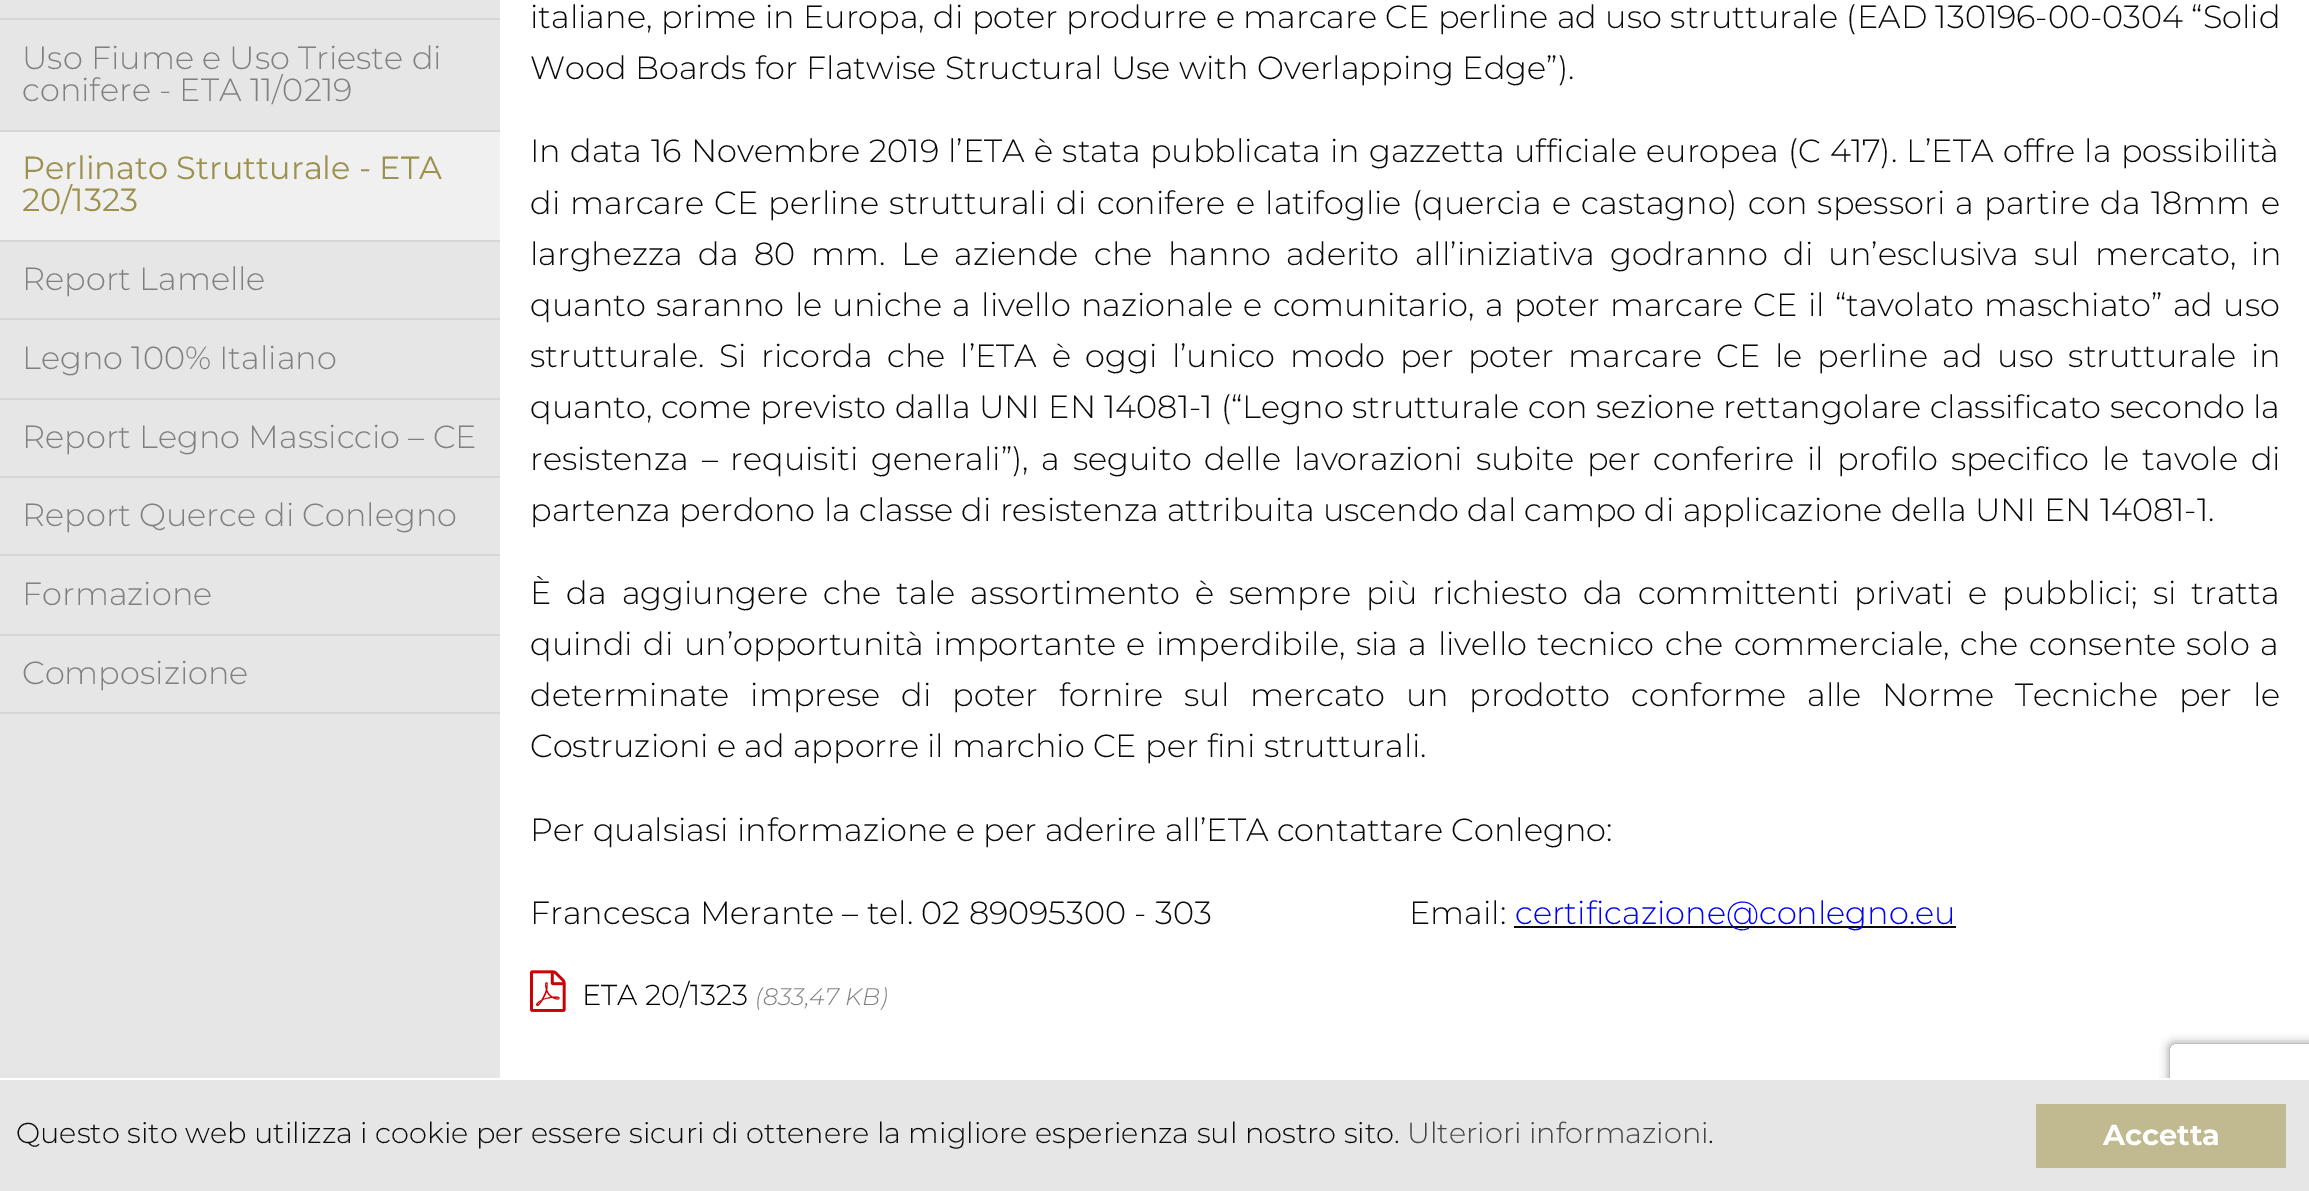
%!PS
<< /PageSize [2309 1191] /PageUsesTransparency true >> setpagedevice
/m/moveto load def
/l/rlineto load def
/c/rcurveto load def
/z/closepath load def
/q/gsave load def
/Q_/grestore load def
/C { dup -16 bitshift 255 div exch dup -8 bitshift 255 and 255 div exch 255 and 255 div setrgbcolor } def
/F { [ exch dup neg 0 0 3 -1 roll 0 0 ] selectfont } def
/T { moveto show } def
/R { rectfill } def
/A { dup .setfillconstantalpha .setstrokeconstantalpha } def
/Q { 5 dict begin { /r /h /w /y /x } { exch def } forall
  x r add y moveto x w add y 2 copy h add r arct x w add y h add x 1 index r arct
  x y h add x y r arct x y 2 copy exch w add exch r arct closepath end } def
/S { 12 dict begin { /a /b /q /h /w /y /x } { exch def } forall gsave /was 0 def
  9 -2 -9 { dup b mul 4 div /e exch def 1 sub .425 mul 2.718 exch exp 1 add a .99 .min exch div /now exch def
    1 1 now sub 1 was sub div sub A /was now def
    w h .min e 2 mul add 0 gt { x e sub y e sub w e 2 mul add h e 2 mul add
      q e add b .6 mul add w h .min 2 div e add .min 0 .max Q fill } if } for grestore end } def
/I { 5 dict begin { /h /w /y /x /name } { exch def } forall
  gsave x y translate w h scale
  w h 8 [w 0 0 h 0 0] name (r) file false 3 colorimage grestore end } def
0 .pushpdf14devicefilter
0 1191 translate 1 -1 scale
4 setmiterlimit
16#FFFFFF C
0 0 2309 1191 R
16#E6E6E6 C
0 0 500 1078 R
16#D6D6D6 C
0 712 500 2 R
0 18 500 2 R
/Montserrat-Light 32 F
16#808080 C
(Uso Fiume e Uso Trieste di) 22 69 T
(conifere - ETA 11/0219) 22 101 T
16#F0F0F0 C
0 132 500 108 R
16#D6D6D6 C
0 130 500 2 R
/Montserrat-Regular 32 F
16#9C914F C
(Perlinato Strutturale - ETA) 22 179 T
(20/1323) 22 211 T
16#D6D6D6 C
0 240 500 2 R
/Montserrat-Light 32 F
16#808080 C
(Report Lamelle) 22 290 T
16#D6D6D6 C
0 318 500 2 R
16#808080 C
(Legno 100% Italiano) 22 369 T
16#D6D6D6 C
0 398 500 2 R
16#808080 C
(Report Legno Massiccio – CE) 22 448 T
16#D6D6D6 C
0 476 500 2 R
16#808080 C
(Report Querce di Conlegno) 22 526 T
16#D6D6D6 C
0 554 500 2 R
16#808080 C
(Formazione) 22 605 T
16#D6D6D6 C
0 634 500 2 R
16#808080 C
(Composizione) 22 684 T
16#0A0A0A C
530 28 m .2 0 32 (italiane, prime in Europa, di poter produrre e marcare CE perline ad uso strutturale \(EAD 130196-00-0304 “Solid) widthshow
(Wood Boards for Flatwise Structural Use with Overlapping Edge”\).) 530 79 T
530 162 m 1 0 32 (In data 16 Novembre 2019 l’ETA è stata pubblicata in gazzetta ufficiale europea \(C 417\). L’ETA offre la possibilità) widthshow
530 214 m 2.1 0 32 (di marcare CE perline strutturali di conifere e latifoglie \(quercia e castagno\) con spessori a partire da 18mm e) widthshow
530 265 m 7.25 0 32 (larghezza da 80 mm. Le aziende che hanno aderito all’iniziativa godranno di un’esclusiva sul mercato, in) widthshow
530 316 m 2.1 0 32 (quanto saranno le uniche a livello nazionale e comunitario, a poter marcare CE il “tavolato maschiato” ad uso) widthshow
530 367 m 6.4 0 32 (strutturale. Si ricorda che l’ETA è oggi l’unico modo per poter marcare CE le perline ad uso strutturale in) widthshow
530 418 m .25 0 32 (quanto, come previsto dalla UNI EN 14081-1 \(“Legno strutturale con sezione rettangolare classificato secondo la) widthshow
530 470 m 4.6 0 32 (resistenza – requisiti generali”\), a seguito delle lavorazioni subite per conferire il profilo specifico le tavole di) widthshow
(partenza perdono la classe di resistenza attribuita uscendo dal campo di applicazione della UNI EN 14081-1.) 530 521 T
530 604 m 6.75 0 32 (È da aggiungere che tale assortimento è sempre più richiesto da committenti privati e pubblici; si tratta) widthshow
530 655 m 2.25 0 32 (quindi di un’opportunità importante e imperdibile, sia a livello tecnico che commerciale, che consente solo a) widthshow
530 706 m 12.6 0 32 (determinate imprese di poter fornire sul mercato un prodotto conforme alle Norme Tecniche per le) widthshow
(Costruzioni e ad apporre il marchio CE per fini strutturali.) 530 757 T
(Per qualsiasi informazione e per aderire all’ETA contattare Conlegno:) 530 841 T
(Francesca Merante – tel. 02 89095300 - 303                        Email:) 530 924 T
1514 926 442 2 R
16#0000FF C
(certificazione@conlegno.eu) 1515 924 T
(1.rgb) 530 970 36 42 I
/Montserrat-Light 28.8 F
16#000000 C
(ETA 20/1323) 582 1005 T
/Montserrat-LightItalic 24 F
16#808080 C
(\(833,47 KB\)) 755 1005 T
q
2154 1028 m 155 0 l 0 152 l -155 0 l z 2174 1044 m 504 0 l 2 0 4 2 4 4 c 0 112 l 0 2 -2 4 -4 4 c -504 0 l -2 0 -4 -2 -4 -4 c 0 -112 l 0 -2 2 -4 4 -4 c z eoclip newpath
2170 1044 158 120 4 5 1 S
Q_
16#E6E6E6 C
0 1080 2309 111 R
16#FFFFFF C
2160 1078 10 2 R
/Montserrat-Light 28.8 F
16#0A0A0A C
(Questo sito web utilizza i cookie per essere sicuri di ottenere la migliore esperienza sul nostro sito.) 16 1143 T
16#444444 C
(Ulteriori informazioni) 1407 1143 T
16#0A0A0A C
(.) 1708 1143 T
16#C1BA91 C
2036 1104 250 64 R
/Montserrat-Bold 28.8 F
16#FFFFFF C
(Accetta) 2103 1145 T
.poppdf14devicefilter showpage
